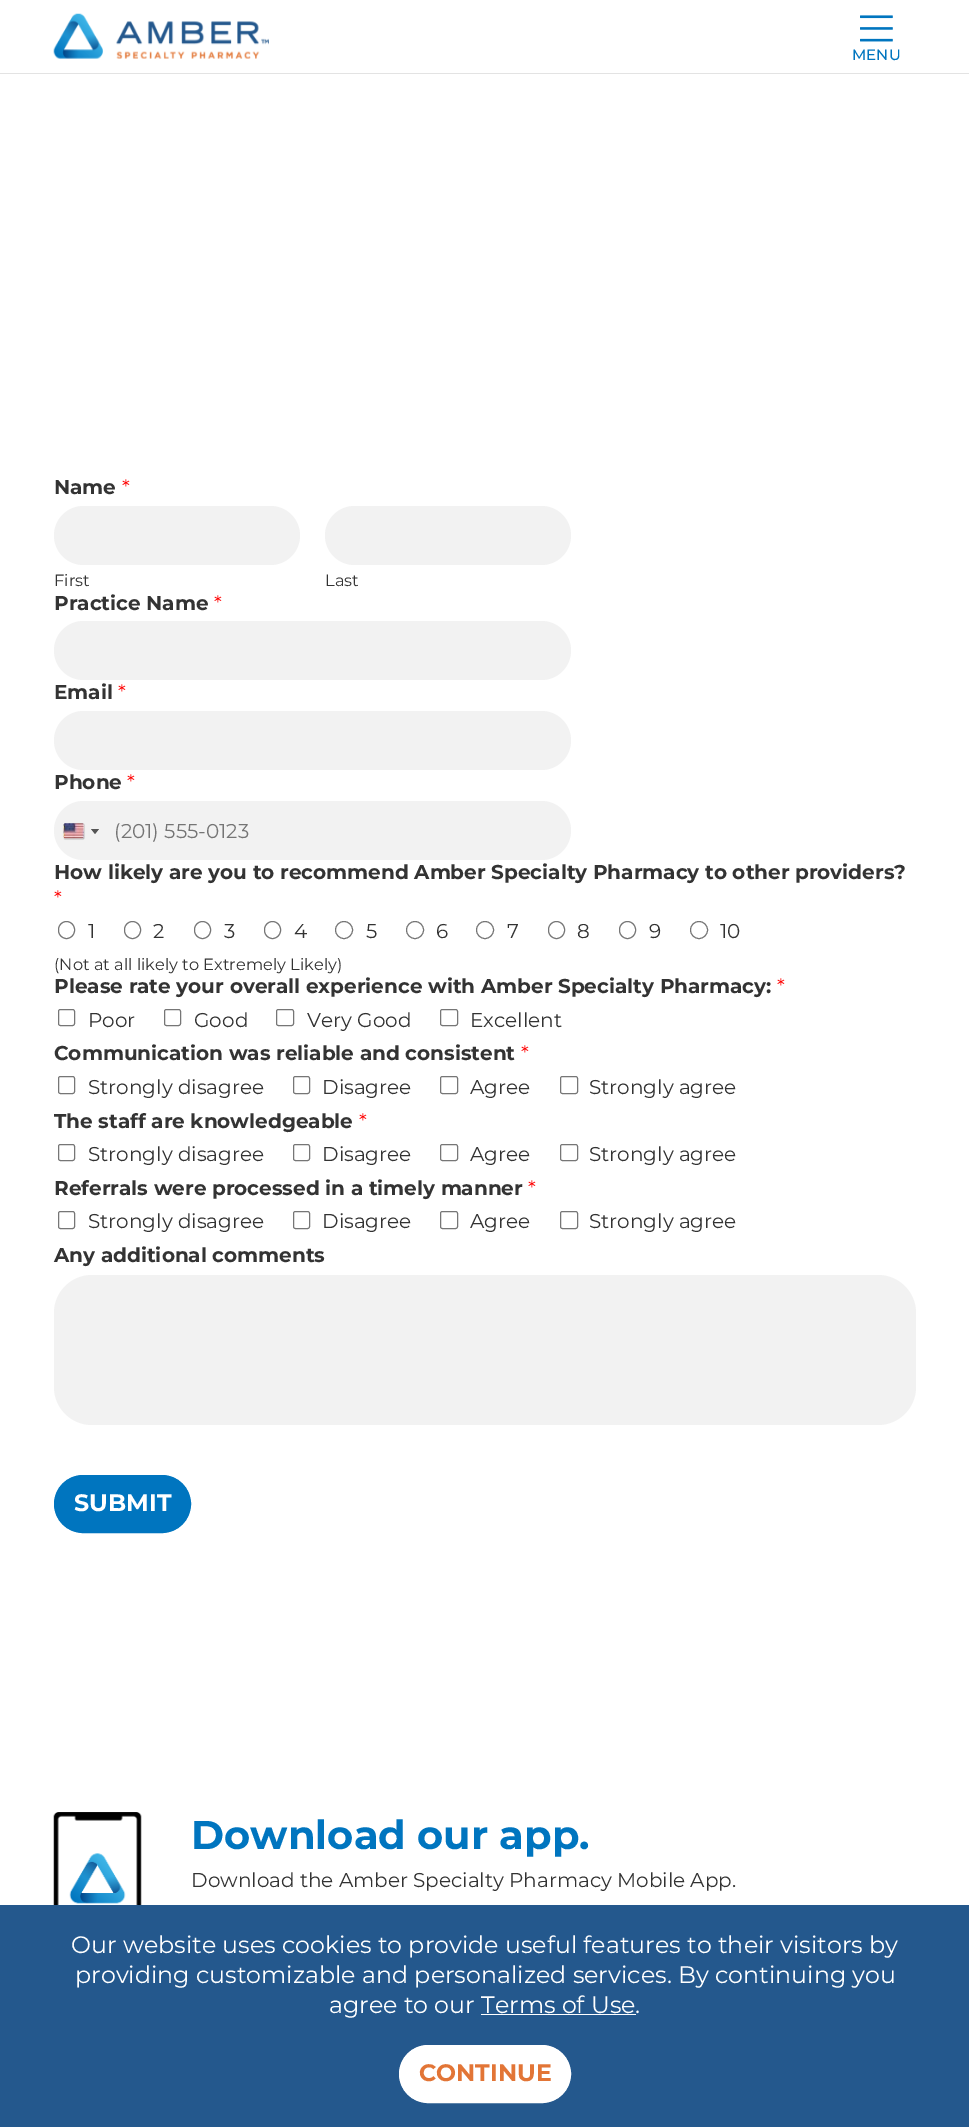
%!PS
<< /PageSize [969 2127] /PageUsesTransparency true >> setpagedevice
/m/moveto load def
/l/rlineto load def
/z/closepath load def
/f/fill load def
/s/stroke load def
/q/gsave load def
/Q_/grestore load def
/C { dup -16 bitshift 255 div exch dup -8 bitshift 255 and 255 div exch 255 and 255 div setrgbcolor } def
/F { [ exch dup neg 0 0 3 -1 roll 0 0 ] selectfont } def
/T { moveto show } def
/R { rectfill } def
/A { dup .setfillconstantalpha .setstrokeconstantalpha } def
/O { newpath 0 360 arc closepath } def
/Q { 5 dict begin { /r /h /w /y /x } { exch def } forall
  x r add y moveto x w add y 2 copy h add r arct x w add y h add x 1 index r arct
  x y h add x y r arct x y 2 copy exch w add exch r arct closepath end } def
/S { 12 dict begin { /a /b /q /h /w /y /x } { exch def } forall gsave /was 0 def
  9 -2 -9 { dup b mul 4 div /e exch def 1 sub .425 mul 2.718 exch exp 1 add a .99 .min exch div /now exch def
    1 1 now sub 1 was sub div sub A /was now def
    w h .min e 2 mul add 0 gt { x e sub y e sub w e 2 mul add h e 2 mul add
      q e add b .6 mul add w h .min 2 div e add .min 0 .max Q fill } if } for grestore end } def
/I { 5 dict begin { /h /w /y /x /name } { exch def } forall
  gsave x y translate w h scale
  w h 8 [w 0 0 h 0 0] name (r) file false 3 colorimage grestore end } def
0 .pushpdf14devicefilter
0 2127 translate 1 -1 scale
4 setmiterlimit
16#FFFFFF C
0 0 969 2127 R
16#E3E3E3 C
0 73 969 1 R
(1.rgb) 53 13 216 46 I
(2.rgb) 860 15 33 27 I
/Montserrat-Medium 15 F
16#0075BF C
(MENU) 852 60 T
/Montserrat-Bold 20 F
16#333333 C
(Name) 54 494 T
/Montserrat-Regular 20 F
16#FF0000 C
(*) 122 494 T
16#F2F2F2 C
54 506 246 59 29.5 Q f
/Montserrat-Regular 16.25 F
16#333333 C
(First) 54 586 T
16#F2F2F2 C
325 506 246 59 29.5 Q f
16#333333 C
(Last) 325 586 T
/Montserrat-Bold 20 F
(Practice Name) 54 610 T
/Montserrat-Regular 20 F
16#FF0000 C
(*) 214 610 T
16#F2F2F2 C
54 621 517 59 29.5 Q f
/Montserrat-Bold 20 F
16#333333 C
(Email) 54 699 T
/Montserrat-Regular 20 F
16#FF0000 C
(*) 118 699 T
16#F2F2F2 C
54 711 517 59 29.5 Q f
/Montserrat-Bold 20 F
16#333333 C
(Phone) 54 789 T
/Montserrat-Regular 20 F
16#FF0000 C
(*) 127 789 T
16#F2F2F2 C
54 801 517 59 29.5 Q f
16#888888 C
64 824 20 15 1 .5 1 S
(3.rgb) 63 823 21 16 I
16#555555 C
91 829 m 8 0 l -4 5 l z f
16#757575 C
(\(201\) 555-0123) 114 838 T
/Montserrat-Bold 20 F
16#333333 C
(How likely are you to recommend Amber Specialty Pharmacy to other providers?) 54 879 T
/Montserrat-Regular 20 F
16#FF0000 C
(*) 54 905 T
16#767676 C
58.5 921.5 16 17 8 Q s
16#333333 C
(1) 88 938 T
16#767676 C
124.5 921.5 16 17 8 Q s
16#333333 C
(2) 153 938 T
16#767676 C
194.5 921.5 16 17 8 Q s
16#333333 C
(3) 224 938 T
16#767676 C
264.5 921.5 16 17 8 Q s
16#333333 C
(4) 294 938 T
16#767676 C
344 930 8.5 O s
16#333333 C
(5) 366 938 T
16#767676 C
415 930 8.5 O s
16#333333 C
(6) 436 938 T
16#767676 C
485 930 8.5 O s
16#333333 C
(7) 507 938 T
16#767676 C
548.5 921.5 16 17 8 Q s
16#333333 C
(8) 577 938 T
16#767676 C
619.5 921.5 16 17 8 Q s
16#333333 C
(9) 649 938 T
16#767676 C
699 930 8.5 O s
16#333333 C
(10) 720 938 T
/Montserrat-Regular 16.25 F
(\(Not at all likely to Extremely Likely\)) 54 970 T
/Montserrat-Bold 20 F
(Please rate your overall experience with Amber Specialty Pharmacy:) 54 993 T
/Montserrat-Regular 20 F
16#FF0000 C
(*) 777 993 T
16#767676 C
58.5 1009.5 16 16 2 Q s
16#333333 C
(Poor) 88 1027 T
16#767676 C
164.5 1009.5 16 16 2 Q s
16#333333 C
(Good) 194 1027 T
16#767676 C
276.5 1009.5 17 16 2 Q s
16#333333 C
(Very Good) 307 1027 T
16#767676 C
440.5 1009.5 17 16 2 Q s
16#333333 C
(Excellent) 470 1027 T
/Montserrat-Bold 20 F
(Communication was reliable and consistent) 54 1060 T
/Montserrat-Regular 20 F
16#FF0000 C
(*) 521 1060 T
16#767676 C
58.5 1076.5 16 17 2 Q s
16#333333 C
(Strongly disagree) 88 1094 T
16#767676 C
293.5 1076.5 16 17 2 Q s
16#333333 C
(Disagree) 322 1094 T
16#767676 C
440.5 1076.5 17 17 2 Q s
16#333333 C
(Agree) 470 1094 T
16#767676 C
560.5 1076.5 17 17 2 Q s
16#333333 C
(Strongly agree) 589 1094 T
/Montserrat-Bold 20 F
(The staff are knowledgeable) 54 1128 T
/Montserrat-Regular 20 F
16#FF0000 C
(*) 359 1128 T
16#767676 C
58.5 1144.5 16 16 2 Q s
16#333333 C
(Strongly disagree) 88 1161 T
16#767676 C
293.5 1144.5 16 16 2 Q s
16#333333 C
(Disagree) 322 1161 T
16#767676 C
440.5 1144.5 17 16 2 Q s
16#333333 C
(Agree) 470 1161 T
16#767676 C
560.5 1144.5 17 16 2 Q s
16#333333 C
(Strongly agree) 589 1161 T
/Montserrat-Bold 20 F
(Referrals were processed in a timely manner) 54 1195 T
/Montserrat-Regular 20 F
16#FF0000 C
(*) 528 1195 T
16#767676 C
58.5 1211.5 16 17 2 Q s
16#333333 C
(Strongly disagree) 88 1228 T
16#767676 C
293.5 1211.5 16 17 2 Q s
16#333333 C
(Disagree) 322 1228 T
16#767676 C
440.5 1211.5 17 17 2 Q s
16#333333 C
(Agree) 470 1228 T
16#767676 C
560.5 1211.5 17 17 2 Q s
16#333333 C
(Strongly agree) 589 1228 T
/Montserrat-Bold 20 F
(Any additional comments) 54 1262 T
16#F2F2F2 C
54 1275 862 150 38 Q f
16#0075BF C
54.5 1475.5 136 57 28.5 Q q f Q_
s
/Montserrat-Bold 23.75 F
16#FFFFFF C
(SUBMIT) 74 1511 T
(4.rgb) 53 1812 89 93 I
/Montserrat-Bold 40 F
16#0075BF C
(Download our app.) 191 1849 T
/Montserrat-Regular 20 F
16#333333 C
(Download the Amber Specialty Pharmacy Mobile App.) 191 1887 T
16#24588D C
0 1905 969 222 R
/Montserrat-Regular 23.75 F
16#FFFFFF C
(Our website uses cookies to provide useful features to their visitors by) 71 1953 T
(providing customizable and personalized services. By continuing you) 75 1983 T
(agree to our Terms of Use.) 329 2013 T
481 2014 155 1 R
399.5 2045.5 171 57 28.5 Q q f Q_
s
/Montserrat-Bold 23.75 F
16#E27536 C
(CONTINUE) 419 2081 T
.poppdf14devicefilter showpage
